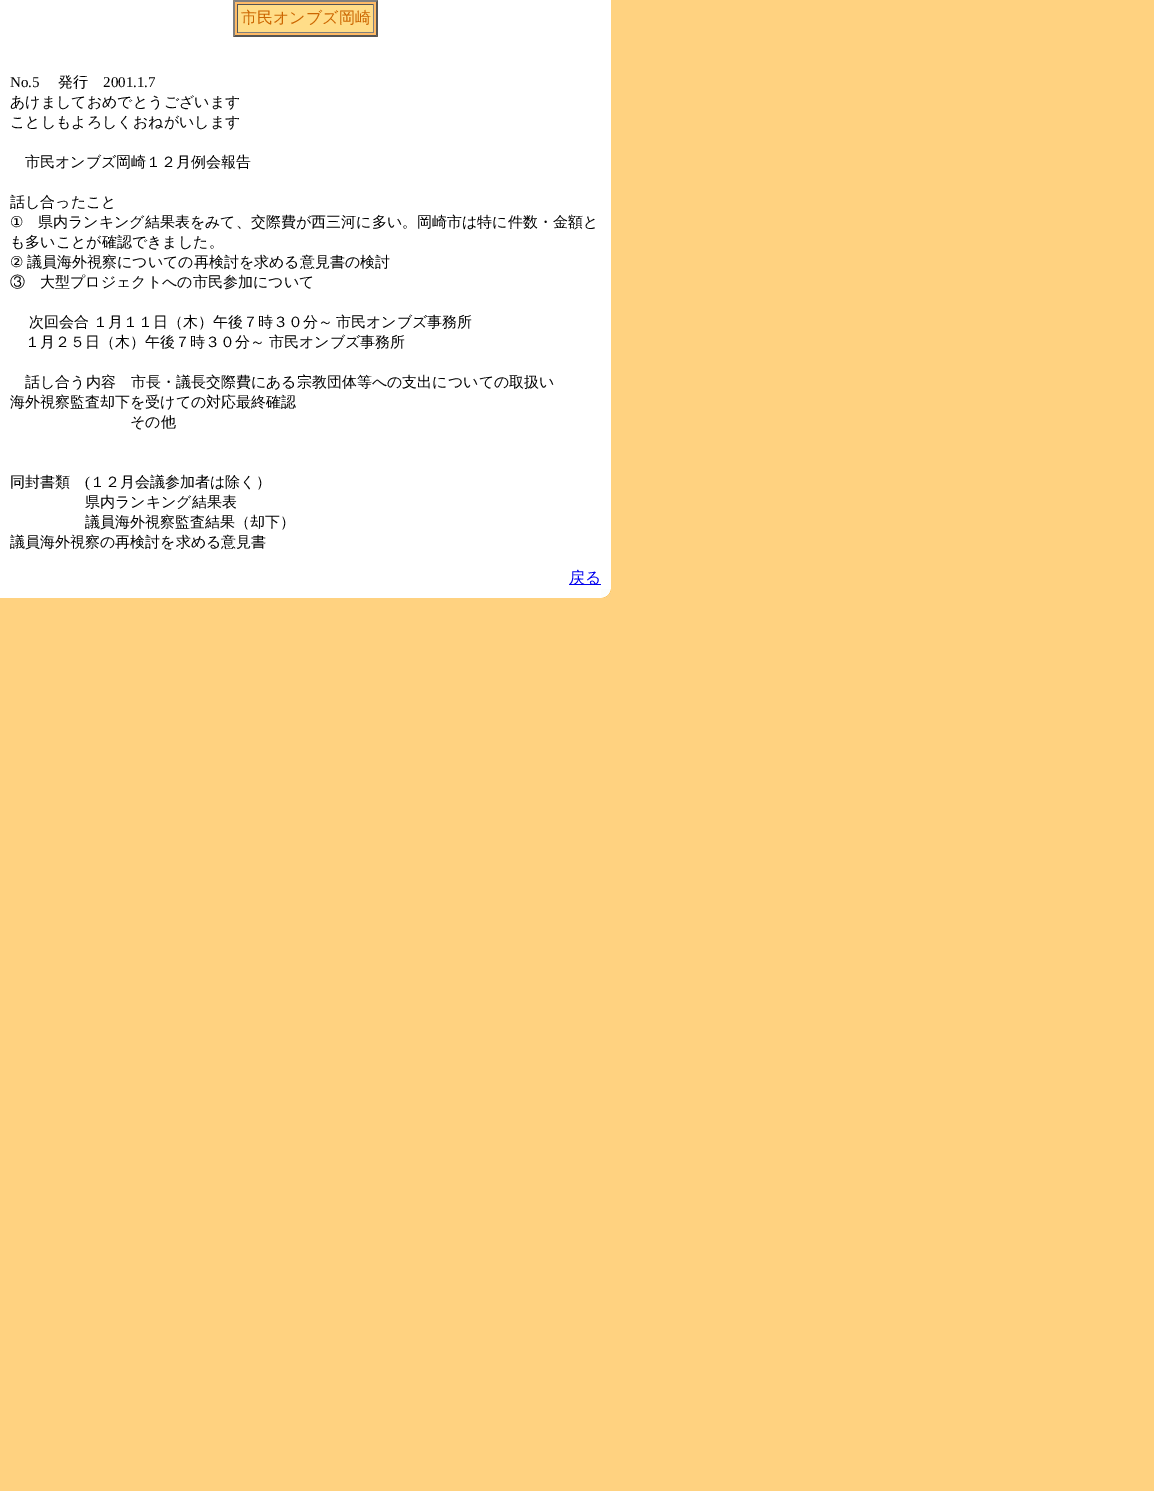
%!PS
<< /PageSize [1154 1491] >> setpagedevice
/m/moveto load def
/l/rlineto load def
/z/closepath load def
/f/fill load def
/C { dup -16 bitshift 255 div exch dup -8 bitshift 255 and 255 div exch 255 and 255 div setrgbcolor } def
/F { [ exch dup neg 0 0 3 -1 roll 0 0 ] selectfont } def
/T { moveto show } def
/R { rectfill } def
/I { 5 dict begin { /h /w /y /x /name } { exch def } forall
  gsave x y translate w h scale
  w h 8 [w 0 0 h 0 0] name (r) file false 3 colorimage grestore end } def
0 1491 translate 1 -1 scale
4 setmiterlimit
16#FFD280 C
0 0 1154 1491 R
16#FFFFFF C
0 0 611 589 R
16#FFBB66 C
233 0 145 37 R
16#808080 C
233 0 m 145 0 l -2 2 l -141 0 l z f
16#555555 C
378 0 m 0 37 l -2 -2 l 0 -33 l z f
378 37 m -145 0 l 2 -2 l 141 0 l z f
16#808080 C
233 37 m 0 -37 l 2 2 l 0 33 l z f
16#FFDD88 C
238 5 135 27 R
16#555555 C
237 4 137 1 R
16#808080 C
373 4 1 29 R
237 32 137 1 R
16#555555 C
237 4 1 29 R
/WenQuanYiZenHei-Medium 16 F
16#CC6600 C
(市民オンブズ岡崎) 241 23 T
/LiberationSerif-Regular 15 F
16#000000 C
(No.5) 10 87 T
/WenQuanYiZenHei-Medium 15 F
(発行) 58 87 T
/LiberationSerif-Regular 15 F
(2001.1.7) 103 87 T
/WenQuanYiZenHei-Medium 15 F
(あけましておめでとうございます) 10 107 T
(ことしもよろしくおねがいします) 10 127 T
(市民オンブズ岡崎１２月例会報告) 25 167 T
(話し合ったこと) 10 207 T
/DejaVuSans-Regular 15 F
(①) 10 227 T
/WenQuanYiZenHei-Medium 15 F
(県内ランキング結果表をみて、交際費が西三河に多い。岡崎市は特に件数・金額と) 38 227 T
(も多いことが確認できました。) 10 247 T
/DejaVuSans-Regular 15 F
(②) 10 267 T
/WenQuanYiZenHei-Medium 15 F
(議員海外視察についての再検討を求める意見書の検討) 27 267 T
(③　大型プロジェクトへの市民参加について) 10 287 T
(次回会合) 29 327 T
(１月１１日（木）午後７時３０分～) 93 327 T
(市民オンブズ事務所) 336 327 T
(１月２５日（木）午後７時３０分～) 25 347 T
(市民オンブズ事務所) 269 347 T
(話し合う内容　市長・議長交際費にある宗教団体等への支出についての取扱い) 25 387 T
(海外視察監査却下を受けての対応最終確認) 10 407 T
(その他) 130 427 T
(同封書類) 10 487 T
/LiberationSerif-Regular 15 F
(\() 85 487 T
/WenQuanYiZenHei-Medium 15 F
(１２月会議参加者は除く）) 90 487 T
(県内ランキング結果表) 85 507 T
(議員海外視察監査結果（却下）) 85 527 T
(議員海外視察の再検討を求める意見書) 10 547 T
16#0000EE C
569 584 32 1 R
/WenQuanYiZenHei-Medium 16 F
(戻る) 569 583 T
16#FFFFFF C
0 589 601 9 R
(1.rgb) 601 589 10 9 I
showpage
